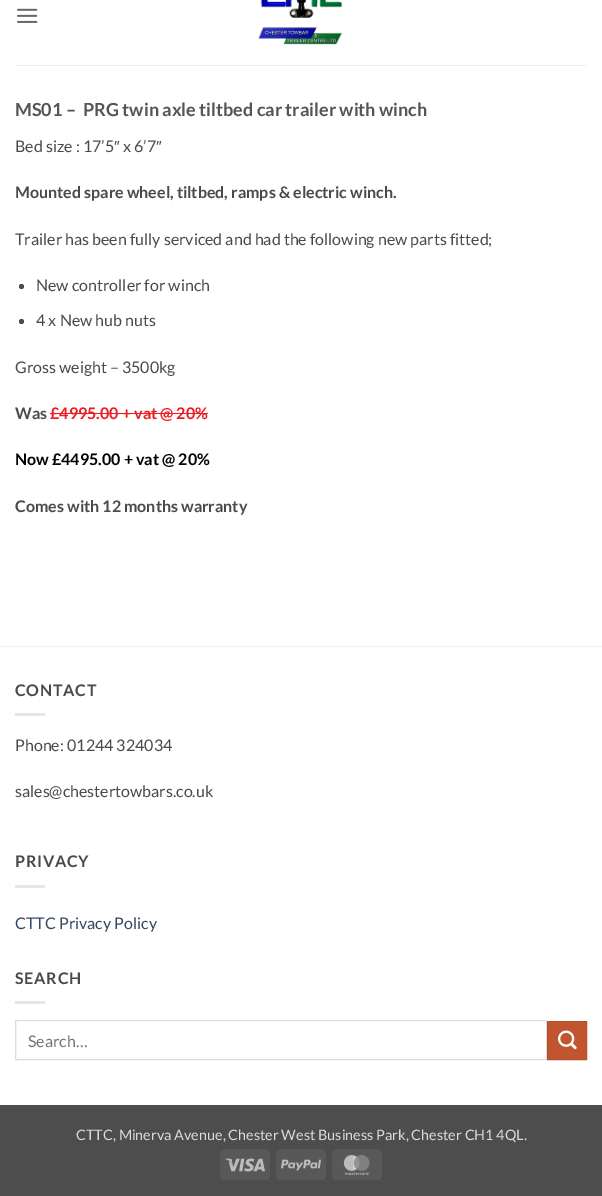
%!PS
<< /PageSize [602 1196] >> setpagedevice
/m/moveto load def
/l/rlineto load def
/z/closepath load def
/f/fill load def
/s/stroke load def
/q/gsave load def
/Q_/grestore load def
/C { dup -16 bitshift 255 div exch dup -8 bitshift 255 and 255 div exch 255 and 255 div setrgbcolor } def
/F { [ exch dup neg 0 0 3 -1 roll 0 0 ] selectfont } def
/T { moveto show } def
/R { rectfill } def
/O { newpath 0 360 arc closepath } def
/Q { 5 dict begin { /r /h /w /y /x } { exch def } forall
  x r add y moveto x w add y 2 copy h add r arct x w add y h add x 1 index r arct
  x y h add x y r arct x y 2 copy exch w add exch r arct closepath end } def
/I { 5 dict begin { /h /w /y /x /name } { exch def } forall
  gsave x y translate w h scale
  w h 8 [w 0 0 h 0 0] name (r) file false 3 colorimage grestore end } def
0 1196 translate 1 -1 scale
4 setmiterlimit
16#FFFFFF C
0 0 602 1196 R
(1.rgb) 17 8 21 15 I
(2.rgb) 258 0 85 45 I
16#EDEDED C
15 65 572 1 R
/Lato-Bold 18 F
16#555555 C
(MS01 –  PRG twin axle tiltbed car trailer with winch) 15 116 T
/Lato-Regular 16 F
16#4A4A4A C
(Bed size : 17’5) 15 152 T
/LiberationSans-Regular 16 F
(″) 114 152 T
/Lato-Regular 16 F
(x 6’7) 123 152 T
/LiberationSans-Regular 16 F
(″) 156 152 T
/Lato-Bold 16 F
(Mounted spare wheel, tiltbed, ramps & electric winch.) 15 198 T
/Lato-Regular 16 F
(Trailer has been fully serviced and had the following new parts fitted;) 15 245 T
21.5 286.5 2.5 O f
(New controller for winch) 36 291 T
21.5 321.5 2.5 O f
(4 x New hub nuts) 36 326 T
(Gross weight – 3500kg) 15 373 T
/Lato-Bold 16 F
(Was) 15 419 T
16#ED1C24 C
(£4995.00 + vat @ 20%) 50 419 T
50 413 158 1 R
16#000000 C
(Now £4495.00 + vat @ 20%) 15 465 T
16#4A4A4A C
(Comes with 12 months warranty) 15 512 T
16#F2F2F2 C
0 646 602 1 R
16#4A4A4A C
15 696 m .75 0 (CONTACT) ashow
16#E6E6E6 C
15 713 30 3 R
/Lato-Regular 16 F
16#4A4A4A C
(Phone: 01244 324034) 15 751 T
(sales@chestertowbars.co.uk) 15 797 T
/Lato-Bold 16 F
15 867 m .75 0 (PRIVACY) ashow
16#E6E6E6 C
15 885 30 3 R
/Lato-Regular 16 F
16#334862 C
(CTTC Privacy Policy) 15 929 T
/Lato-Bold 16 F
16#4A4A4A C
15 984 m .75 0 (SEARCH) ashow
16#E6E6E6 C
15 1001 30 3 R
16#DDDDDD C
15.5 1020.5 531 39 rectstroke
/Lato-Regular 16 F
16#757575 C
(Search…) 28 1047 T
16#C05530 C
547.5 1021.5 m 39 0 l 0 38 l -39 0 l z q f Q_
16#B6512E C
s
(3.rgb) 558 1030 19 20 I
16#4D4D4D C
0 1105 602 91 R
/Lato-Regular 14.4 F
16#DBDBDB C
(CTTC, Minerva Avenue, Chester West Business Park, Chester CH1 4QL.) 76 1140 T
16#585858 C
220 1149 50 31 5 Q f
(4.rgb) 225 1158 40 14 I
276 1149 50 31 5 Q f
(5.rgb) 281 1159 40 12 I
332 1149 50 31 5 Q f
(6.rgb) 343 1155 27 20 I
showpage
